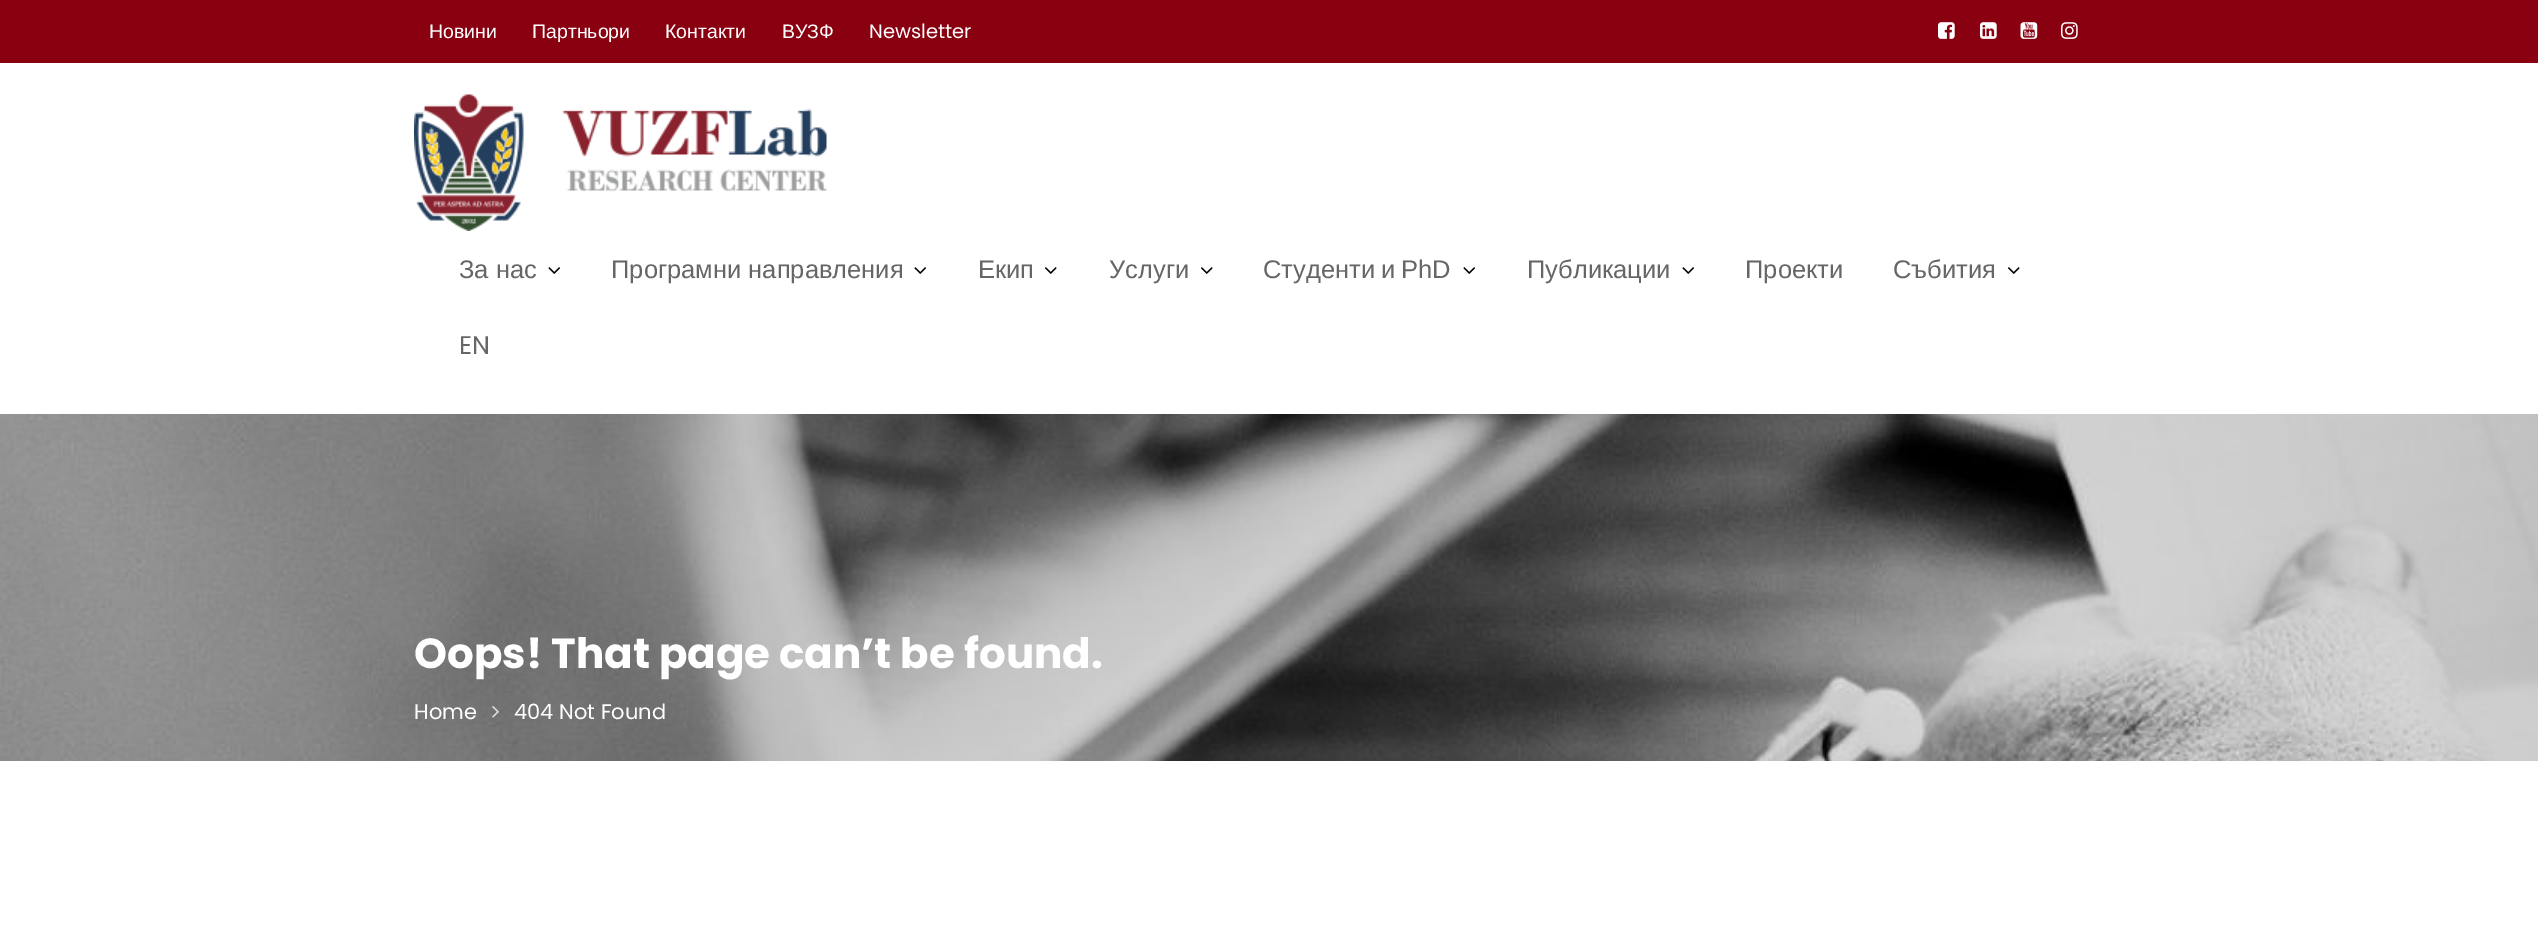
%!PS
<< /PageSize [2538 931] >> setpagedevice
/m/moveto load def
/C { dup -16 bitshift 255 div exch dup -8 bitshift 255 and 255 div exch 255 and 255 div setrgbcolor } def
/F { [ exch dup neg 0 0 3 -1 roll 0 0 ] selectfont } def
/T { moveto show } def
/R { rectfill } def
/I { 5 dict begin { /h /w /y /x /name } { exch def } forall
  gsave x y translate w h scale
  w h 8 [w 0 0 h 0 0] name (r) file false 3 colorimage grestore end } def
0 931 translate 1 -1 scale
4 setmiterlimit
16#FFFFFF C
0 0 2538 931 R
16#890010 C
0 0 2538 63 R
/LiberationSans-Regular 19.5 F
16#FFFFFF C
(Новини) 429 38 T
(Партньори) 532 38 T
(Контакти) 665 38 T
(ВУЗФ) 782 38 T
/Poppins-Regular 19.5 F
(Newsletter) 869 38 T
(1.rgb) 1938 22 17 17 I
(2.rgb) 1980 22 17 17 I
(3.rgb) 2020 22 18 17 I
(4.rgb) 2061 22 17 17 I
(5.rgb) 414 94 413 137 I
/LiberationSans-Regular 25.5 F
16#666666 C
(За нас) 459 278 T
(6.rgb) 548 267 12 7 I
(Програмни направления) 611 278 T
(6.rgb) 914 267 12 7 I
(Екип) 978 278 T
(7.rgb) 1045 267 12 7 I
(Услуги) 1109 278 T
(7.rgb) 1201 267 12 7 I
1263 278 m -1 0 32 (Студенти и PhD) widthshow
(6.rgb) 1463 267 12 7 I
(Публикации) 1527 278 T
(6.rgb) 1682 267 12 7 I
(Проекти) 1745 278 T
(Събития) 1893 278 T
(7.rgb) 2008 267 12 7 I
/Poppins-Regular 25.5 F
(EN) 459 354 T
(8.rgb) 0 414 2538 347 I
/Poppins-Bold 42 F
16#FFFFFF C
(Oops! That page can’t be found.) 414 668 T
/Poppins-Regular 21 F
(Home) 414 719 T
(9.rgb) 492 706 7 12 I
(404 Not Found) 514 719 T
showpage
